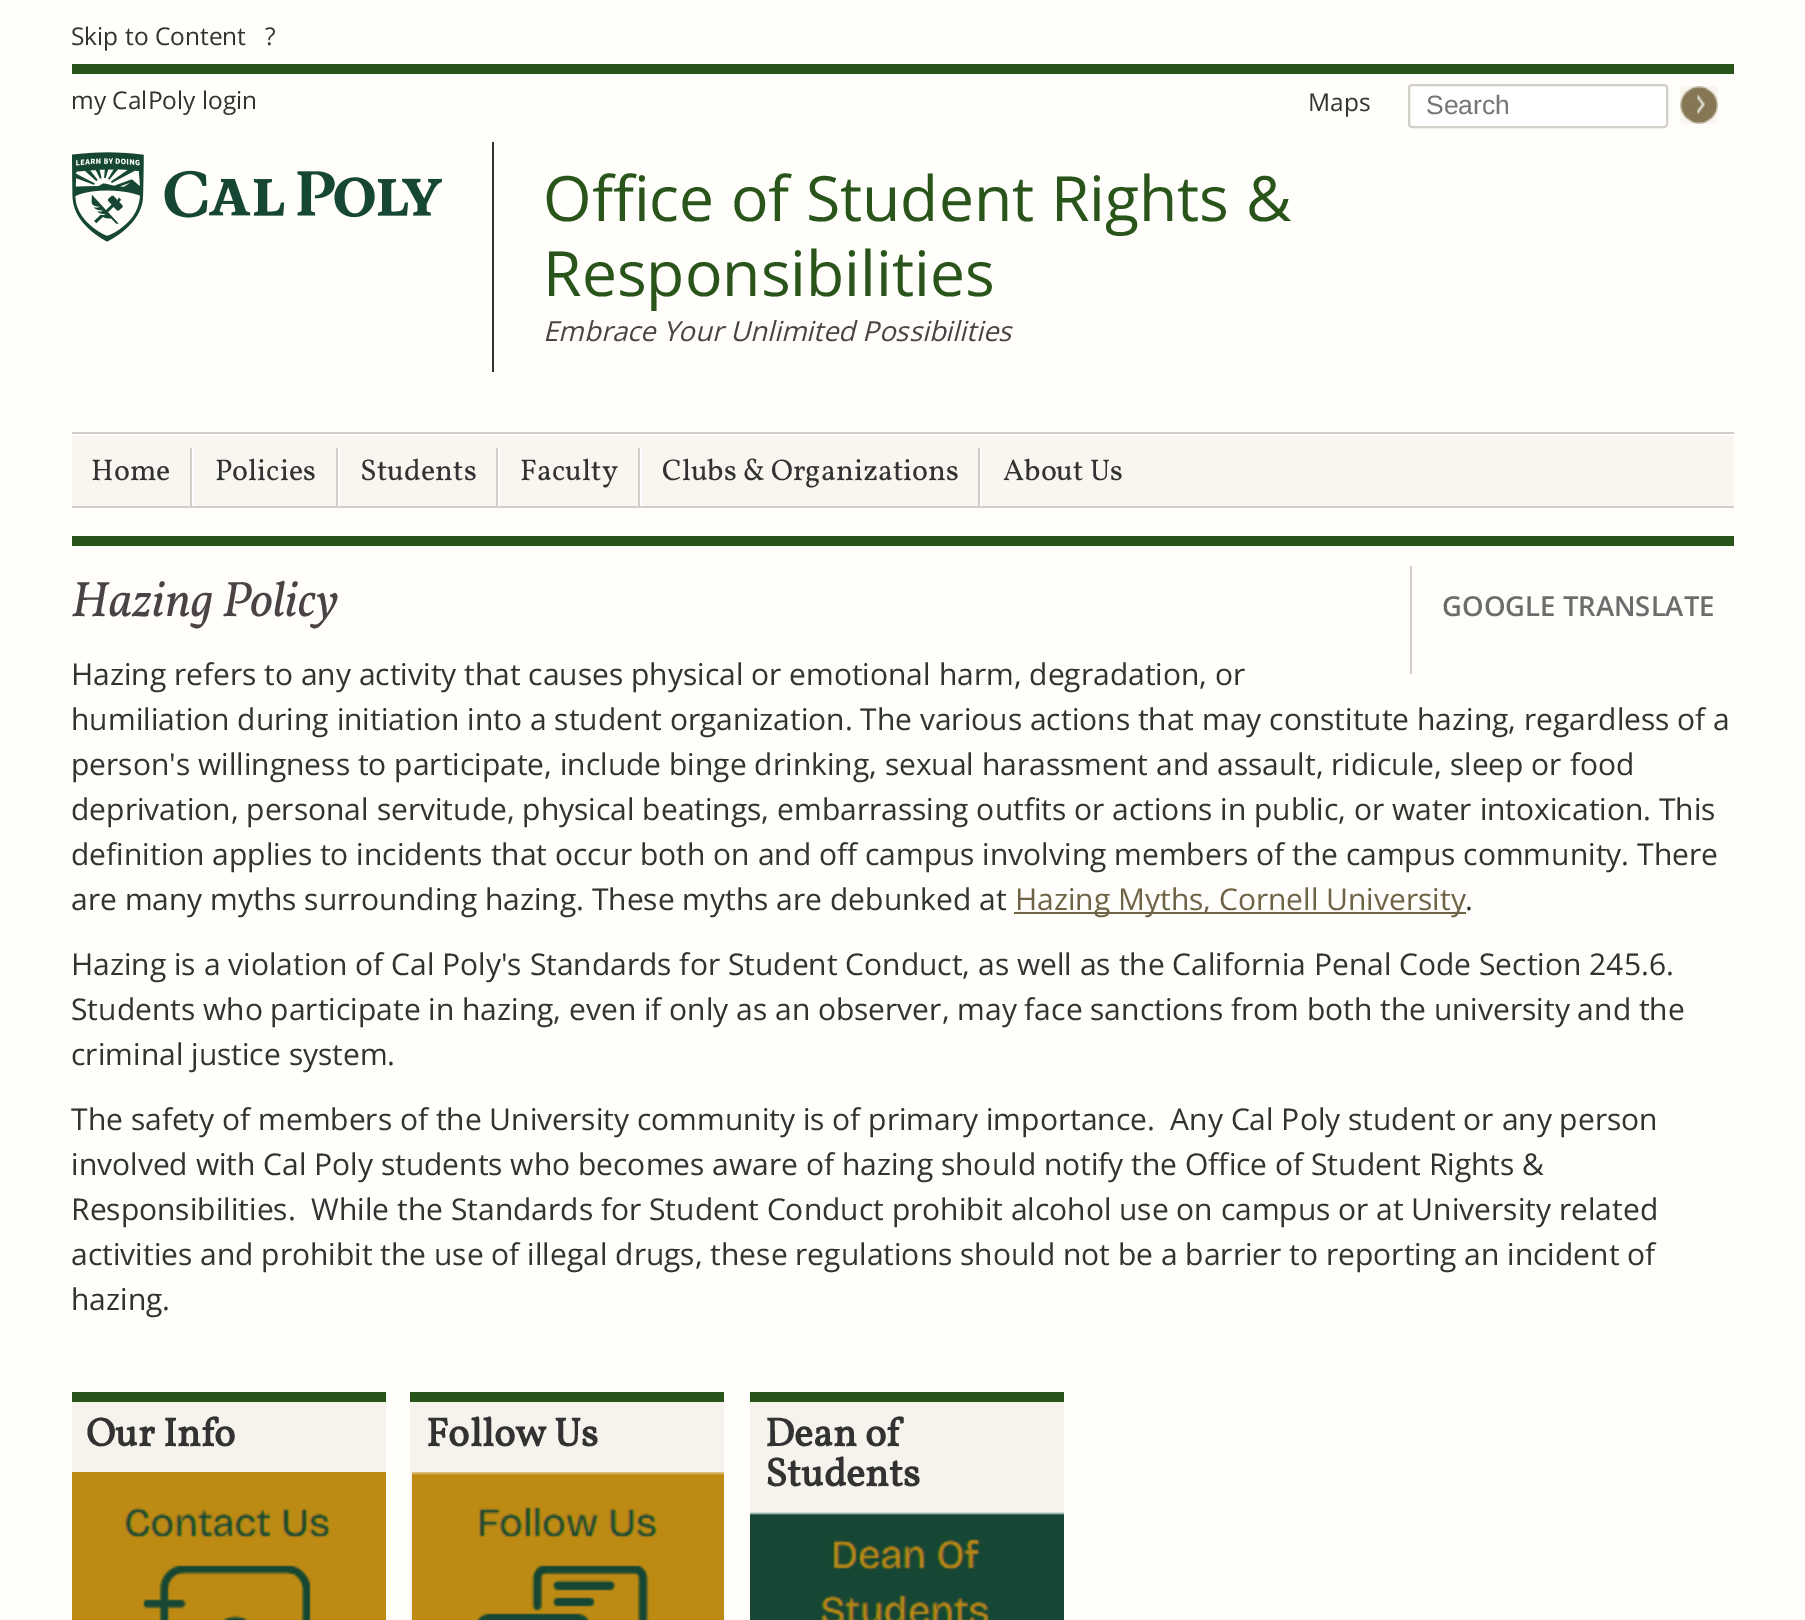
%!PS
<< /PageSize [1805 1620] >> setpagedevice
/f/fill load def
/s/stroke load def
/q/gsave load def
/Q_/grestore load def
/w/setlinewidth load def
/C { dup -16 bitshift 255 div exch dup -8 bitshift 255 and 255 div exch 255 and 255 div setrgbcolor } def
/F { [ exch dup neg 0 0 3 -1 roll 0 0 ] selectfont } def
/T { moveto show } def
/R { rectfill } def
/Q { 5 dict begin { /r /h /w /y /x } { exch def } forall
  x r add y moveto x w add y 2 copy h add r arct x w add y h add x 1 index r arct
  x y h add x y r arct x y 2 copy exch w add exch r arct closepath end } def
/I { 5 dict begin { /h /w /y /x /name } { exch def } forall
  gsave x y translate w h scale
  w h 8 [w 0 0 h 0 0] name (r) file false 3 colorimage grestore end } def
0 1620 translate 1 -1 scale
4 setmiterlimit
16#FFFEFA C
0 0 1805 1620 R
/OpenSans-Regular 24.5 F
16#323232 C
(Skip to Content) 71 45 T
(?) 265 45 T
16#29551A C
72 64 1662 10 R
16#323232 C
(my CalPoly login) 71 109 T
(Maps) 1308 111 T
16#FFFFFF C
1409 85 258 42 3 Q q f Q_
16#D1CFC7 C
2 w
s
/LiberationSans-Regular 26.5 F
16#757575 C
(Search) 1426 114 T
16#F9F6EF C
1680 86 38 38 4 Q f
(1.rgb) 1680 86 38 38 I
(2.rgb) 72 152 370 90 I
16#323232 C
492 142 2 230 R
/OpenSans-Regular 62.5 F
16#29551A C
(Office of Student Rights &) 543 221 T
(Responsibilities) 543 296 T
/OpenSans-Italic 27.5 F
16#4A4244 C
(Embrace Your Unlimited Possibilities) 543 341 T
16#F9F6EF C
72 436 1662 70 R
16#D1CFC7 C
72 432 1662 2 R
72 506 1662 2 R
16#FFFFFF C
72 434 1662 2 R
16#D1CFC7 C
190 448 2 58 R
/Vollkorn-Regular 30 F
16#323232 C
(Home) 91 480 T
16#D1CFC7 C
336 448 2 58 R
16#FFFFFF C
192 448 2 58 R
16#323232 C
(Policies) 215 480 T
16#D1CFC7 C
496 448 2 58 R
16#FFFFFF C
338 448 2 58 R
16#323232 C
(Students) 360 480 T
16#D1CFC7 C
638 448 2 58 R
16#FFFFFF C
498 448 2 58 R
16#323232 C
(Faculty) 520 480 T
16#D1CFC7 C
978 448 2 58 R
16#FFFFFF C
640 448 2 58 R
16#323232 C
(Clubs & Organizations) 662 480 T
16#FFFFFF C
980 448 2 58 R
16#323232 C
(About Us) 1003 480 T
16#29551A C
72 536 1662 10 R
/Vollkorn-Italic 50 F
16#4A4244 C
(Hazing Policy) 71 616 T
/OpenSans-Regular 30 F
16#323232 C
(Hazing refers to any activity that causes physical or emotional harm, degradation, or) 71 685 T
(humiliation during initiation into a student organization. The various actions that may constitute hazing, regardless of a) 71 730 T
(person's willingness to participate, include binge drinking, sexual harassment and assault, ridicule, sleep or food) 71 775 T
(deprivation, personal servitude, physical beatings, embarrassing outfits or actions in public, or water intoxication. This) 71 820 T
(definition applies to incidents that occur both on and off campus involving members of the campus community. There) 71 865 T
(are many myths surrounding hazing. These myths are debunked at) 71 910 T
16#6F6345 C
1014 912 452 2 R
(Hazing Myths, Cornell University) 1015 910 T
16#323232 C
(.) 1465 910 T
(Hazing is a violation of Cal Poly's Standards for Student Conduct, as well as the California Penal Code Section 245.6.) 71 975 T
(Students who participate in hazing, even if only as an observer, may face sanctions from both the university and the) 71 1020 T
(criminal justice system.) 71 1065 T
(The safety of members of the University community is of primary importance.  Any Cal Poly student or any person) 71 1130 T
(involved with Cal Poly students who becomes aware of hazing should notify the Office of Student Rights &) 71 1175 T
(Responsibilities.  While the Standards for Student Conduct prohibit alcohol use on campus or at University related) 71 1220 T
(activities and prohibit the use of illegal drugs, these regulations should not be a barrier to reporting an incident of) 71 1265 T
(hazing.) 71 1310 T
16#D1CFC7 C
1410 566 2 108 R
/OpenSans-SemiBold 27.5 F
16#6D6C6C C
(GOOGLE TRANSLATE) 1442 616 T
16#F6F3EC C
72 1402 314 70 R
16#29551A C
72 1392 314 10 R
/Vollkorn-Bold 40 F
16#323232 C
(Our Info) 86 1446 T
(3.rgb) 72 1472 314 148 I
16#F6F3EC C
410 1402 314 218 R
16#29551A C
410 1392 314 10 R
16#323232 C
(Follow Us) 426 1446 T
(4.rgb) 412 1472 312 148 I
16#F6F3EC C
750 1402 314 110 R
16#29551A C
750 1392 314 10 R
16#323232 C
(Dean of) 765 1446 T
(Students) 765 1486 T
(5.rgb) 750 1512 314 108 I
showpage
